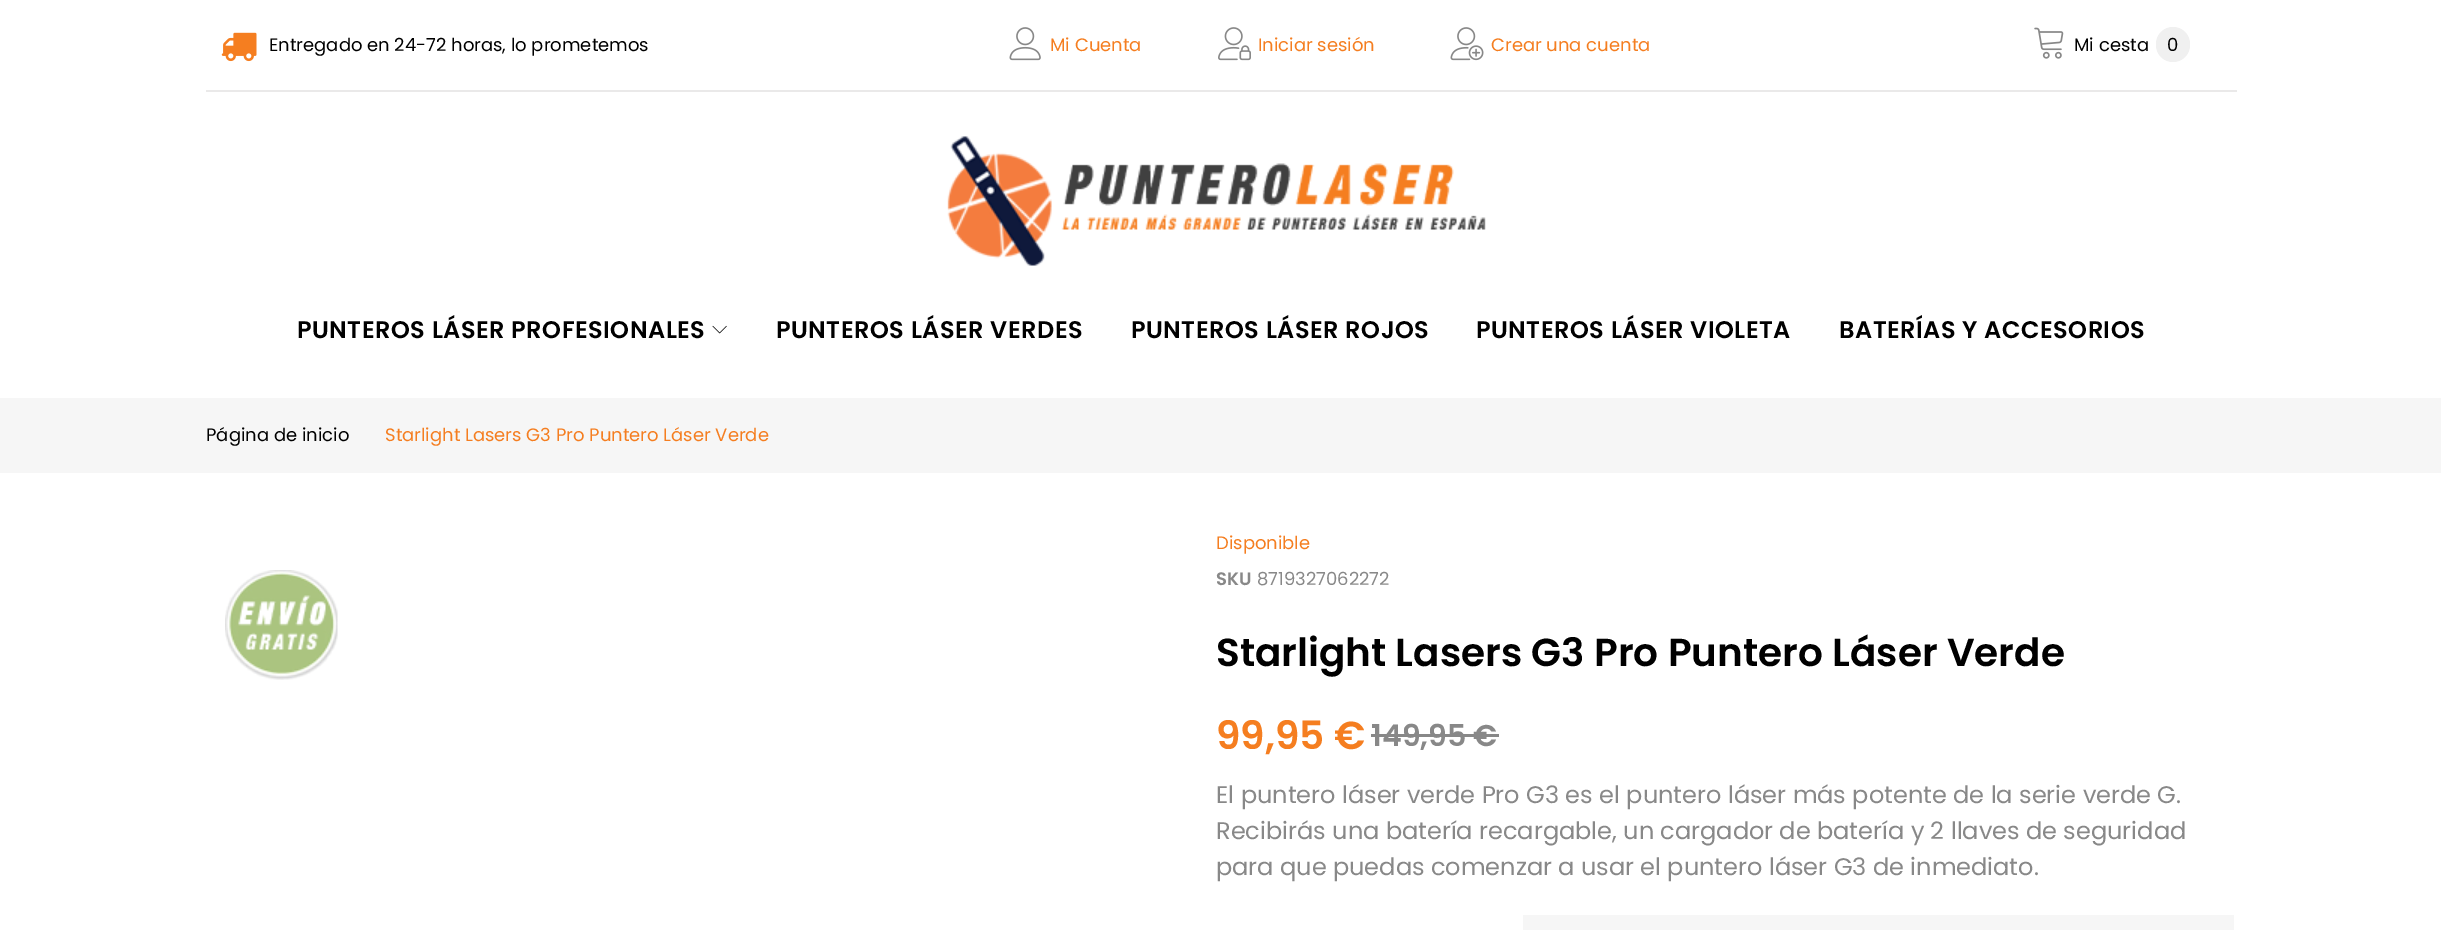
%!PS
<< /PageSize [2441 930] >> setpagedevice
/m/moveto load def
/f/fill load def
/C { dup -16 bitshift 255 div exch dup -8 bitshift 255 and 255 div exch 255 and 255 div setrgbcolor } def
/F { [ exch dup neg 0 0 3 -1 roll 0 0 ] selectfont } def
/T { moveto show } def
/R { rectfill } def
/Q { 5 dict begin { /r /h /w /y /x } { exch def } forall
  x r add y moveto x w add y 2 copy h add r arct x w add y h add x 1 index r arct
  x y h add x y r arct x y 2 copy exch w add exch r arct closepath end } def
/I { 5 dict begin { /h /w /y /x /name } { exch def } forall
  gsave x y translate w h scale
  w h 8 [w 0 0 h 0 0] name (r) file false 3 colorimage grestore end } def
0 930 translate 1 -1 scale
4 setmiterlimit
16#FFFFFF C
0 0 2441 930 R
16#EAE9E9 C
206 90 2031 2 R
(1.rgb) 221 32 36 30 I
/Poppins-Regular 18 F
16#000000 C
(Entregado en 24-72 horas, lo prometemos) 269 51 T
(2.rgb) 1009 27 32 34 I
16#F57E20 C
(Mi Cuenta) 1050 51 T
(3.rgb) 1218 27 33 34 I
(Iniciar sesión) 1258 51 T
(4.rgb) 1450 27 34 34 I
(Crear una cuenta) 1491 51 T
(5.rgb) 2034 27 30 32 I
16#000000 C
(Mi cesta) 2074 51 T
16#F0F0F0 C
2156 27 34 35 17 Q f
16#000000 C
(0) 2167 51 T
(6.rgb) 947 136 539 130 I
/Poppins-SemiBold 24 F
297 338 m .5 0 (PUNTEROS LÁSER PROFESIONALES) ashow
(7.rgb) 712 325 15 9 I
776 338 m .5 0 (PUNTEROS LÁSER VERDES) ashow
1131 338 m .5 0 (PUNTEROS LÁSER ROJOS) ashow
1476 338 m .5 0 (PUNTEROS LÁSER VIOLETA) ashow
1839 338 m .5 0 (BATERÍAS Y ACCESORIOS) ashow
16#F6F6F6 C
0 398 2441 75 R
/Poppins-Regular 18 F
16#000000 C
(Página de inicio) 206 441 T
16#F57E20 C
(Starlight Lasers G3 Pro Puntero Láser Verde) 385 441 T
(8.rgb) 225 570 113 110 I
(Disponible) 1216 549 T
/Poppins-SemiBold 18 F
16#888888 C
(SKU) 1216 585 T
/Poppins-Regular 18 F
(8719327062272) 1257 585 T
/Poppins-SemiBold 39 F
16#000000 C
(Starlight Lasers G3 Pro Puntero Láser Verde) 1216 666 T
16#F57E20 C
(99,95 €) 1216 749 T
/Poppins-SemiBold 30 F
16#888888 C
(149,95 €) 1371 746 T
1371 734 128 3 R
/Poppins-Regular 24 F
(El puntero láser verde Pro G3 es el puntero láser más potente de la serie verde G.) 1216 803 T
(Recibirás una batería recargable, un cargador de batería y 2 llaves de seguridad) 1216 839 T
(para que puedas comenzar a usar el puntero láser G3 de inmediato.) 1216 875 T
16#F6F6F6 C
1523 915 711 15 R
showpage
